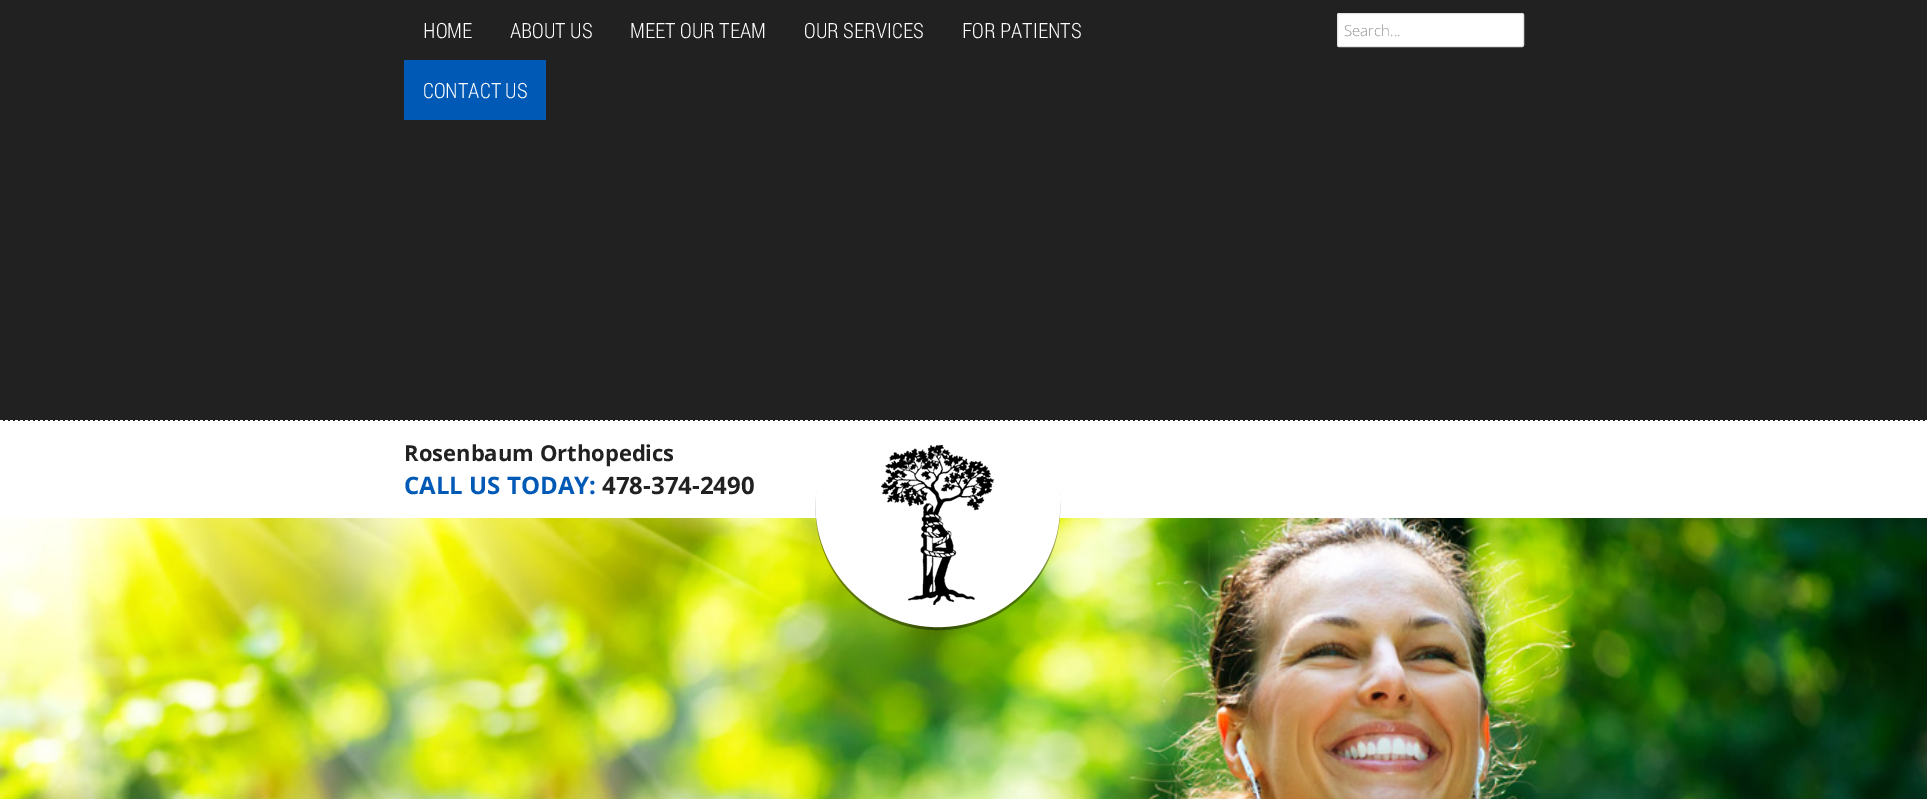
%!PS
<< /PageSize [1927 799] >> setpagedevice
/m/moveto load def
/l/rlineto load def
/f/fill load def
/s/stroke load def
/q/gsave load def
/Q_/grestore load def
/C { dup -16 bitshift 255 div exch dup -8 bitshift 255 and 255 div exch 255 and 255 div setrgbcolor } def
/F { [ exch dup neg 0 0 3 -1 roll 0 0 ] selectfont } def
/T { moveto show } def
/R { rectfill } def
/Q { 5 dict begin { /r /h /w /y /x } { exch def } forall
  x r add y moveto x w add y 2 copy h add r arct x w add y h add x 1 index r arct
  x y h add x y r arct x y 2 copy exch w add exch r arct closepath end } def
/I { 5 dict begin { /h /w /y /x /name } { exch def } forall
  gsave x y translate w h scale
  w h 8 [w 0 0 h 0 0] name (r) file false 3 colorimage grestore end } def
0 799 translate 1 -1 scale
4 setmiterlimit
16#FFFFFF C
0 0 1927 799 R
16#212121 C
0 0 1927 421 R
16#FFFFFF C
[3 2] 0 setdash
0 420.5 m 1927 0 l s
/RobotoCondensed-Light 21 F
(HOME) 423 38 T
(ABOUT US) 510 38 T
(MEET OUR TEAM) 630 38 T
(OUR SERVICES) 804 38 T
(FOR PATIENTS) 962 38 T
16#0059B5 C
404 60 142 60 R
16#FFFFFF C
(CONTACT US) 423 98 T
1337.5 13.5 186 33 1.5 Q q f Q_
16#E2E2E2 C
[] 0 setdash
s
/OpenSans-Light 15 F
16#929292 C
(Search...) 1344 36 T
/OpenSans-Bold 22 F
16#212121 C
(Rosenbaum Orthopedics) 404 461 T
/OpenSans-Bold 24 F
16#0059B5 C
(CALL US TODAY:) 404 494 T
16#212121 C
(478-374-2490) 602 494 T
(2.rgb) 0 518 1927 281 I
(1.rgb) 815 445 246 186 I
showpage
